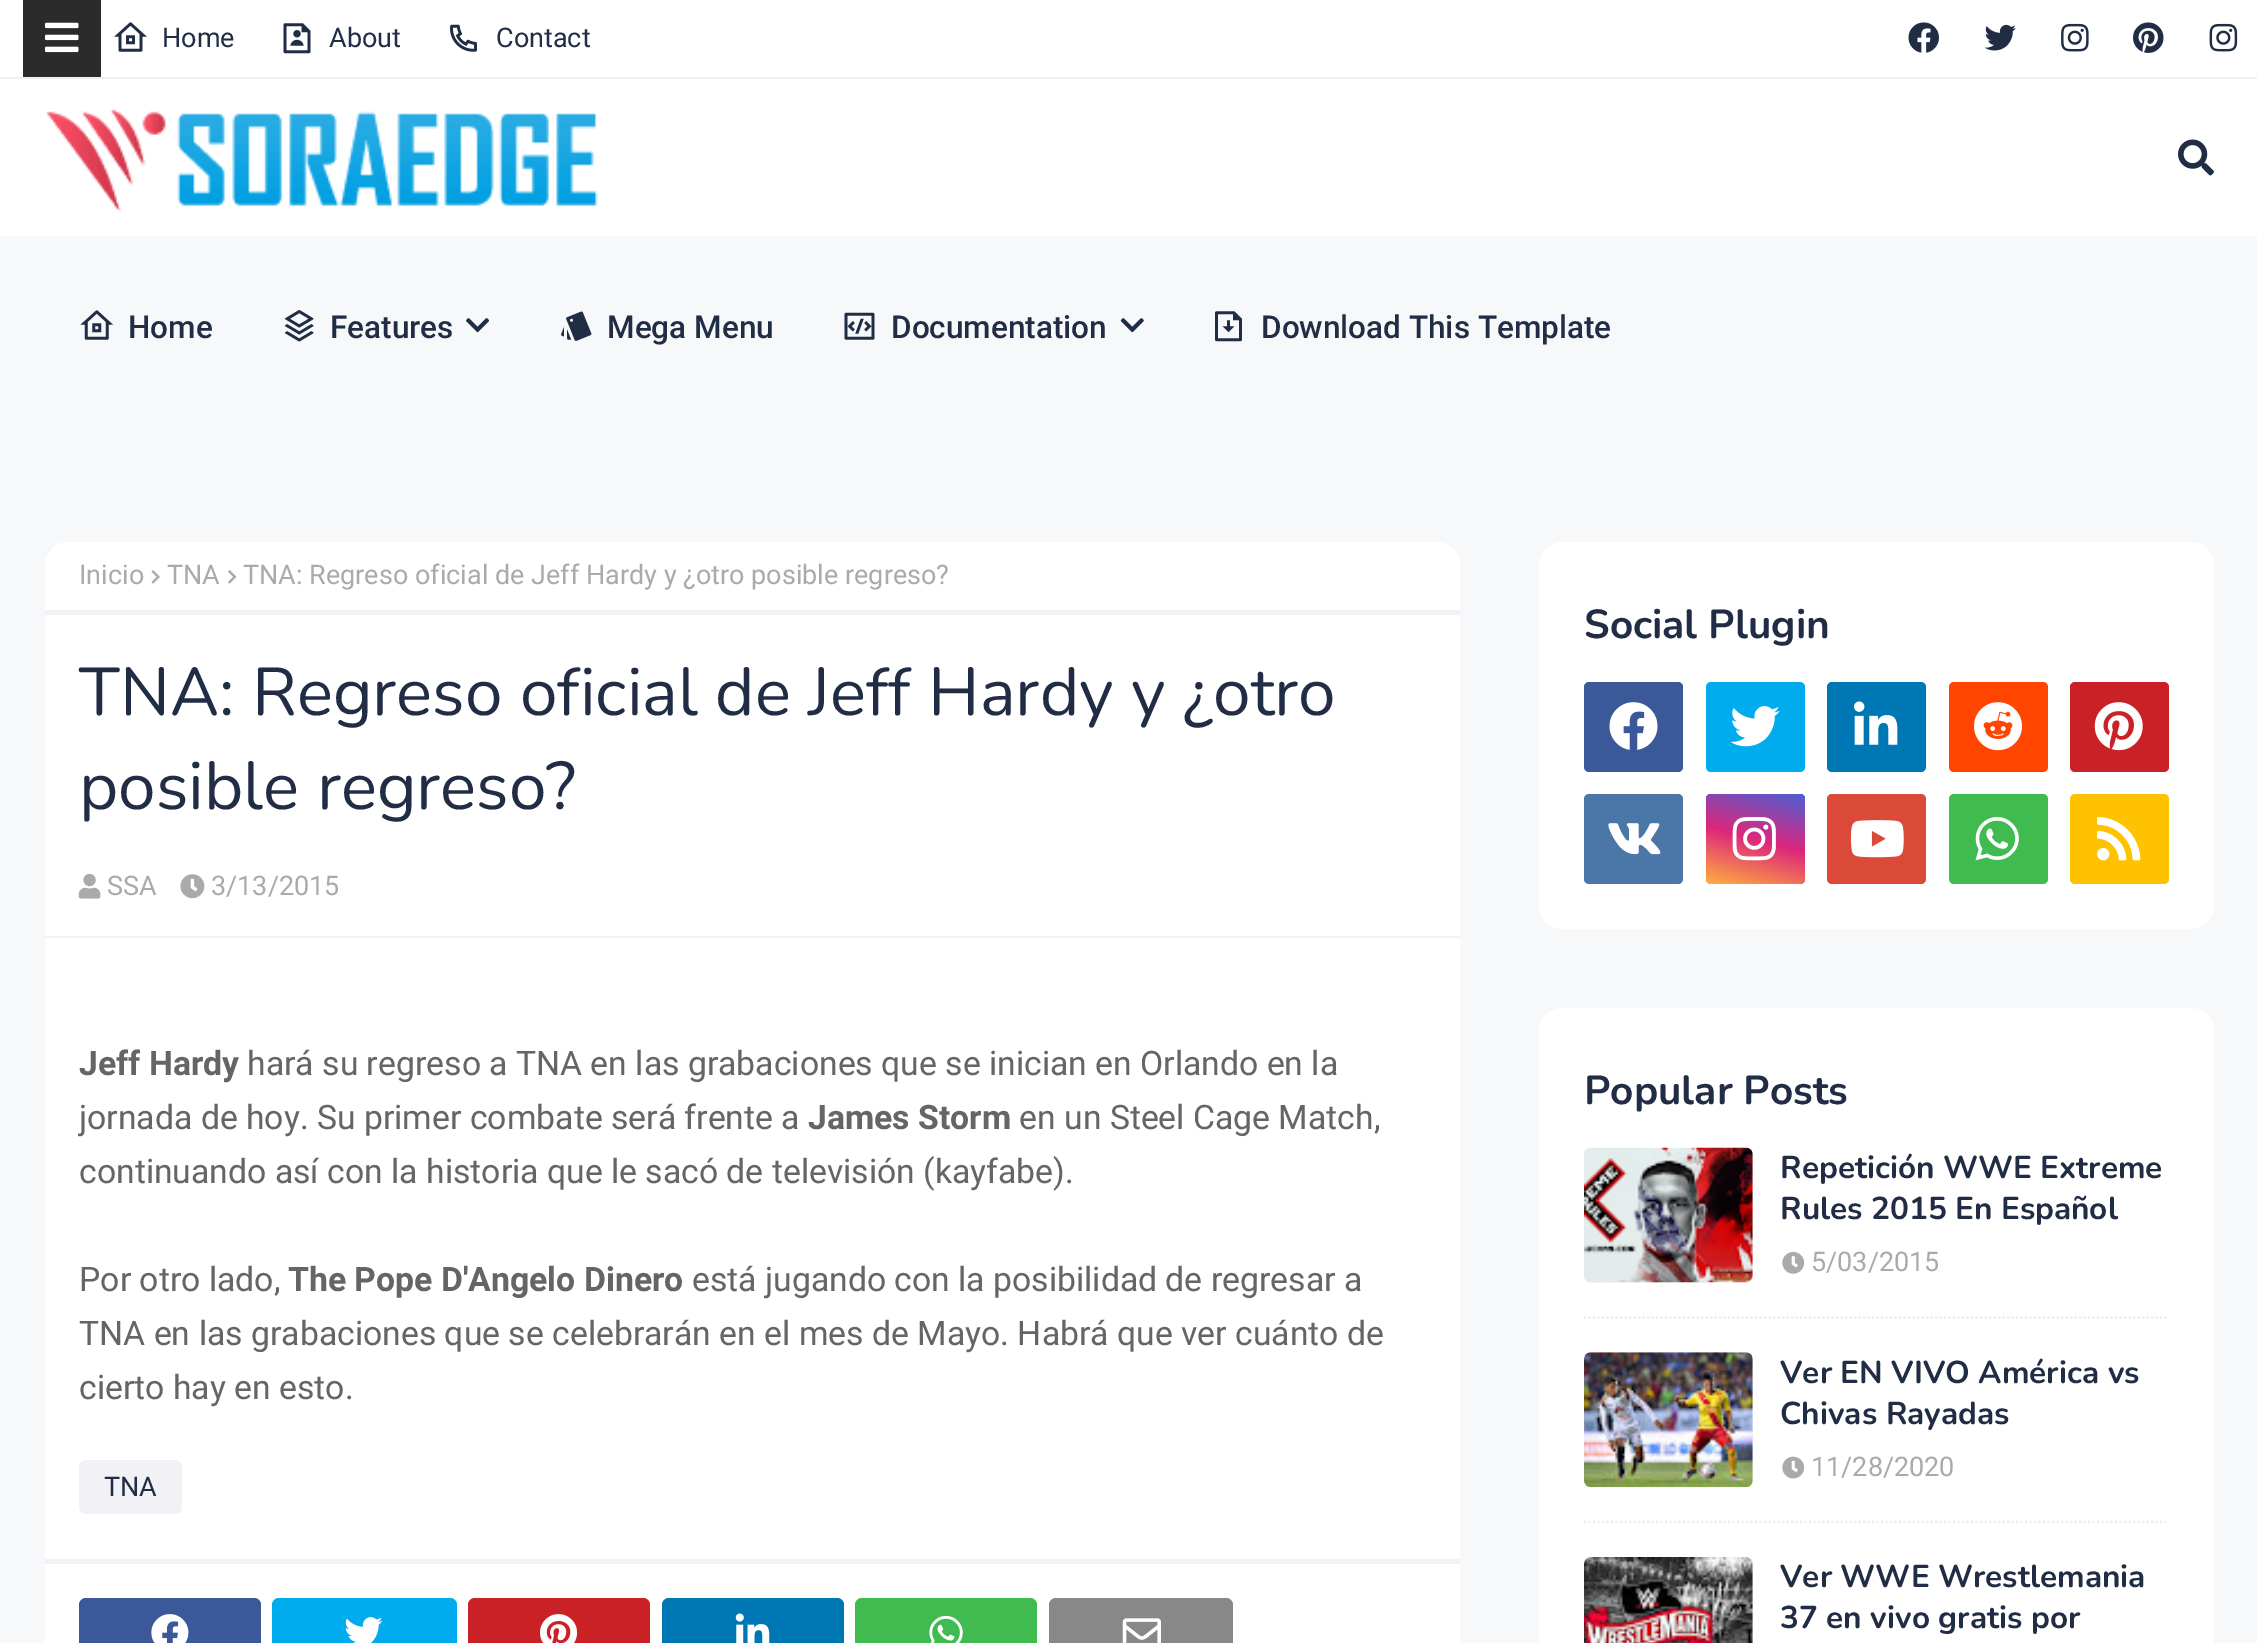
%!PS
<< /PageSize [2257 1643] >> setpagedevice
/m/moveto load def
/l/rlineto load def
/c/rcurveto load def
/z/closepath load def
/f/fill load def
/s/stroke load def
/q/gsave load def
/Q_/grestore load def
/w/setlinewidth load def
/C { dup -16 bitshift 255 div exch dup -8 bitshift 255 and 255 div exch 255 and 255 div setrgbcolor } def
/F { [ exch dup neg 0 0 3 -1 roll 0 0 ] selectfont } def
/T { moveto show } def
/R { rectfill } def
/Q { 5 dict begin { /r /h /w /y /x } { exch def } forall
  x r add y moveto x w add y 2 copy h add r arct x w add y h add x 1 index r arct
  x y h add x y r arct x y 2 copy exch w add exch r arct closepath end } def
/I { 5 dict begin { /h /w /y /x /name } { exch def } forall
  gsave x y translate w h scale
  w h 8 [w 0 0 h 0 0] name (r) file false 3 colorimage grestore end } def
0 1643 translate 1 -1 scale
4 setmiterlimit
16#F7F8F9 C
0 0 2257 1643 R
16#FFFFFF C
0 0 2257 77 R
16#EEF0F9 C
0 77 2257 2 R
16#2B2B2B C
23 0 78 77 R
(1.rgb) 45 22 34 31 I
(2.rgb) 114 22 33 30 I
/Roboto-Regular 27 F
16#212D45 C
(Home) 162 47 T
(3.rgb) 283 23 28 31 I
(About) 329 47 T
(4.rgb) 450 24 27 28 I
(Contact) 496 47 T
(5.rgb) 1908 22 31 31 I
(6.rgb) 1984 24 32 27 I
(7.rgb) 2061 23 28 29 I
(8.rgb) 2133 22 31 31 I
(9.rgb) 2209 23 29 29 I
16#FFFFFF C
0 79 2257 157 R
(10.rgb) 46 109 552 103 I
(11.rgb) 2178 139 36 37 I
(12.rgb) 80 310 34 30 I
/Roboto-Medium 31.5 F
16#212D45 C
(Home) 128 338 T
(13.rgb) 285 310 29 32 I
(Features) 330 338 T
(14.rgb) 466 318 23 15 I
(15.rgb) 561 311 31 30 I
(Mega Menu) 607 338 T
(16.rgb) 844 312 31 28 I
(Documentation) 891 338 T
(17.rgb) 1120 318 24 15 I
(18.rgb) 1215 311 27 31 I
(Download This Template) 1261 338 T
16#FFFFFF C
68 542 m 1369 0 l 12.5 0 23 10.5 23 23 c 0 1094 l 0 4 -3 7 -7 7 c -1401 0 l -4 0 -7 -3 -7 -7 c 0 -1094 l 0 -12.5 10.5 -23 23 -23 c z f
16#F2F2F6 C
45 610 1415 5 R
/Roboto-Regular 27 F
16#AAAAAA C
(Inicio) 79 584 T
(19.rgb) 151 570 9 14 I
(TNA) 167 584 T
(20.rgb) 228 570 9 14 I
(TNA: Regreso oficial de Jeff Hardy y ¿otro posible regreso?) 243 584 T
/Nunito-Regular 67.5 F
16#212D45 C
(TNA: Regreso oficial de Jeff Hardy y ¿otro) 79 715 T
(posible regreso?) 79 809 T
(21.rgb) 78 873 23 26 I
/Roboto-Regular 27 F
16#AAAAAA C
(SSA) 107 895 T
(22.rgb) 180 874 25 25 I
(3/13/2015) 211 895 T
16#F2F2F6 C
45 936 1415 2 R
/Roboto-Bold 33.75 F
16#656565 C
(Jeff Hardy) 79 1075 T
/Roboto-Regular 33.75 F
(hará su regreso a TNA en las grabaciones que se inician en Orlando en la) 247 1075 T
(jornada de hoy. Su primer combate será frente a) 79 1129 T
/Roboto-Bold 33.75 F
(James Storm) 808 1129 T
/Roboto-Regular 33.75 F
(en un Steel Cage Match,) 1019 1129 T
(continuando así con la historia que le sacó de televisión \(kayfabe\).) 79 1183 T
(Por otro lado,) 79 1291 T
/Roboto-Bold 33.75 F
(The Pope D'Angelo Dinero) 288 1291 T
/Roboto-Regular 33.75 F
(está jugando con la posibilidad de regresar a) 692 1291 T
(TNA en las grabaciones que se celebrarán en el mes de Mayo. Habrá que ver cuánto de) 79 1345 T
(cierto hay en esto.) 79 1399 T
16#F2F2F6 C
86 1460 m 89 0 l 4 0 7 3 7 7 c 0 40 l 0 4 -3 7 -7 7 c -89 0 l -4 0 -7 -3 -7 -7 c 0 -40 l 0 -4 3 -7 7 -7 c z f
/Roboto-Regular 27 F
16#212D45 C
(TNA) 104 1496 T
16#F2F2F6 C
45 1559 1415 5 R
16#3B5999 C
79 1598 182 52 7 Q f
(23.rgb) 151 1614 38 29 I
16#00ACEE C
272 1598 185 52 7 Q f
(24.rgb) 345 1617 38 26 I
16#CA2127 C
468 1598 182 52 7 Q f
(25.rgb) 540 1614 38 29 I
16#0077B5 C
662 1598 182 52 7 Q f
(26.rgb) 735 1613 35 30 I
16#3FBB50 C
855 1598 182 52 7 Q f
(27.rgb) 929 1615 34 28 I
16#888888 C
1049 1598 184 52 7 Q f
(28.rgb) 1122 1618 39 25 I
16#FFFFFF C
1539 542 675 387 23 Q f
/Nunito-Bold 40.5 F
16#212D45 C
(Social Plugin) 1584 638 T
16#3B5999 C
1584 682 99 90 5 Q f
(29.rgb) 1609 702 49 48 I
16#00ACEE C
1706 682 99 90 5 Q f
(30.rgb) 1730 706 50 41 I
16#0077B5 C
1827 682 99 90 5 Q f
(31.rgb) 1854 701 44 44 I
16#FF4500 C
1949 682 99 90 5 Q f
(32.rgb) 1974 702 48 49 I
16#CA2127 C
2070 682 99 90 5 Q f
(33.rgb) 2094 702 49 49 I
16#4A76A8 C
1584 794 99 90 5 Q f
(34.rgb) 1608 823 53 32 I
q 1706 794 99 90 5 Q clip newpath
<< /ShadingType 2 /ColorSpace /DeviceRGB /Coords [1740 894 1770 785] /Extend [true true] /Function << /FunctionType 3 /Domain [0 1] /Functions [<< /FunctionType 2 /Domain [0 1] /C0 [1 .694 .239] /C1 [.867 .153 .482] /N 1 >> << /FunctionType 2 /Domain [0 1] /C0 [.867 .153 .482] /C1 [.302 .369 .831] /N 1 >>] /Bounds [.5] /Encode [0 1 0 1] >> >> shfill Q_
(35.rgb) 1732 817 44 44 I
16#DB4A39 C
1827 794 99 90 5 Q f
(36.rgb) 1850 820 54 38 I
16#3FBB50 C
1949 794 99 90 5 Q f
(37.rgb) 1975 817 44 44 I
16#FFC200 C
2070 794 99 90 5 Q f
(38.rgb) 2097 817 44 44 I
16#FFFFFF C
1539 1008 675 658 23 Q f
16#212D45 C
(Popular Posts) 1584 1104 T
16#F8F8F8 C
1584 1148 169 135 7 Q f
(39.rgb) 1584 1147 169 136 I
/Nunito-Bold 31.5 F
16#212D45 C
(Repetición WWE Extreme) 1780 1178 T
(Rules 2015 En Español) 1780 1219 T
(40.rgb) 1782 1251 23 23 I
/Roboto-Regular 27 F
16#AAAAAA C
(5/03/2015) 1811 1271 T
16#EBEBF3 C
2.2 w
[2.25 2.25] 0 setdash
1584 1317.5 m 585 0 l s
16#F8F8F8 C
1584 1352 169 135 7 Q f
(41.rgb) 1584 1352 169 136 I
/Nunito-Bold 31.5 F
16#212D45 C
(Ver EN VIVO América vs) 1780 1383 T
(Chivas Rayadas) 1780 1424 T
(42.rgb) 1782 1456 23 23 I
/Roboto-Regular 27 F
16#AAAAAA C
(11/28/2020) 1811 1476 T
16#EBEBF3 C
1584 1522 m 585 0 l s
16#F8F8F8 C
1584 1557 169 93 7 Q f
(43.rgb) 1584 1557 169 86 I
/Nunito-Bold 31.5 F
16#212D45 C
(Ver WWE Wrestlemania) 1780 1587 T
(37 en vivo gratis por) 1780 1628 T
showpage
